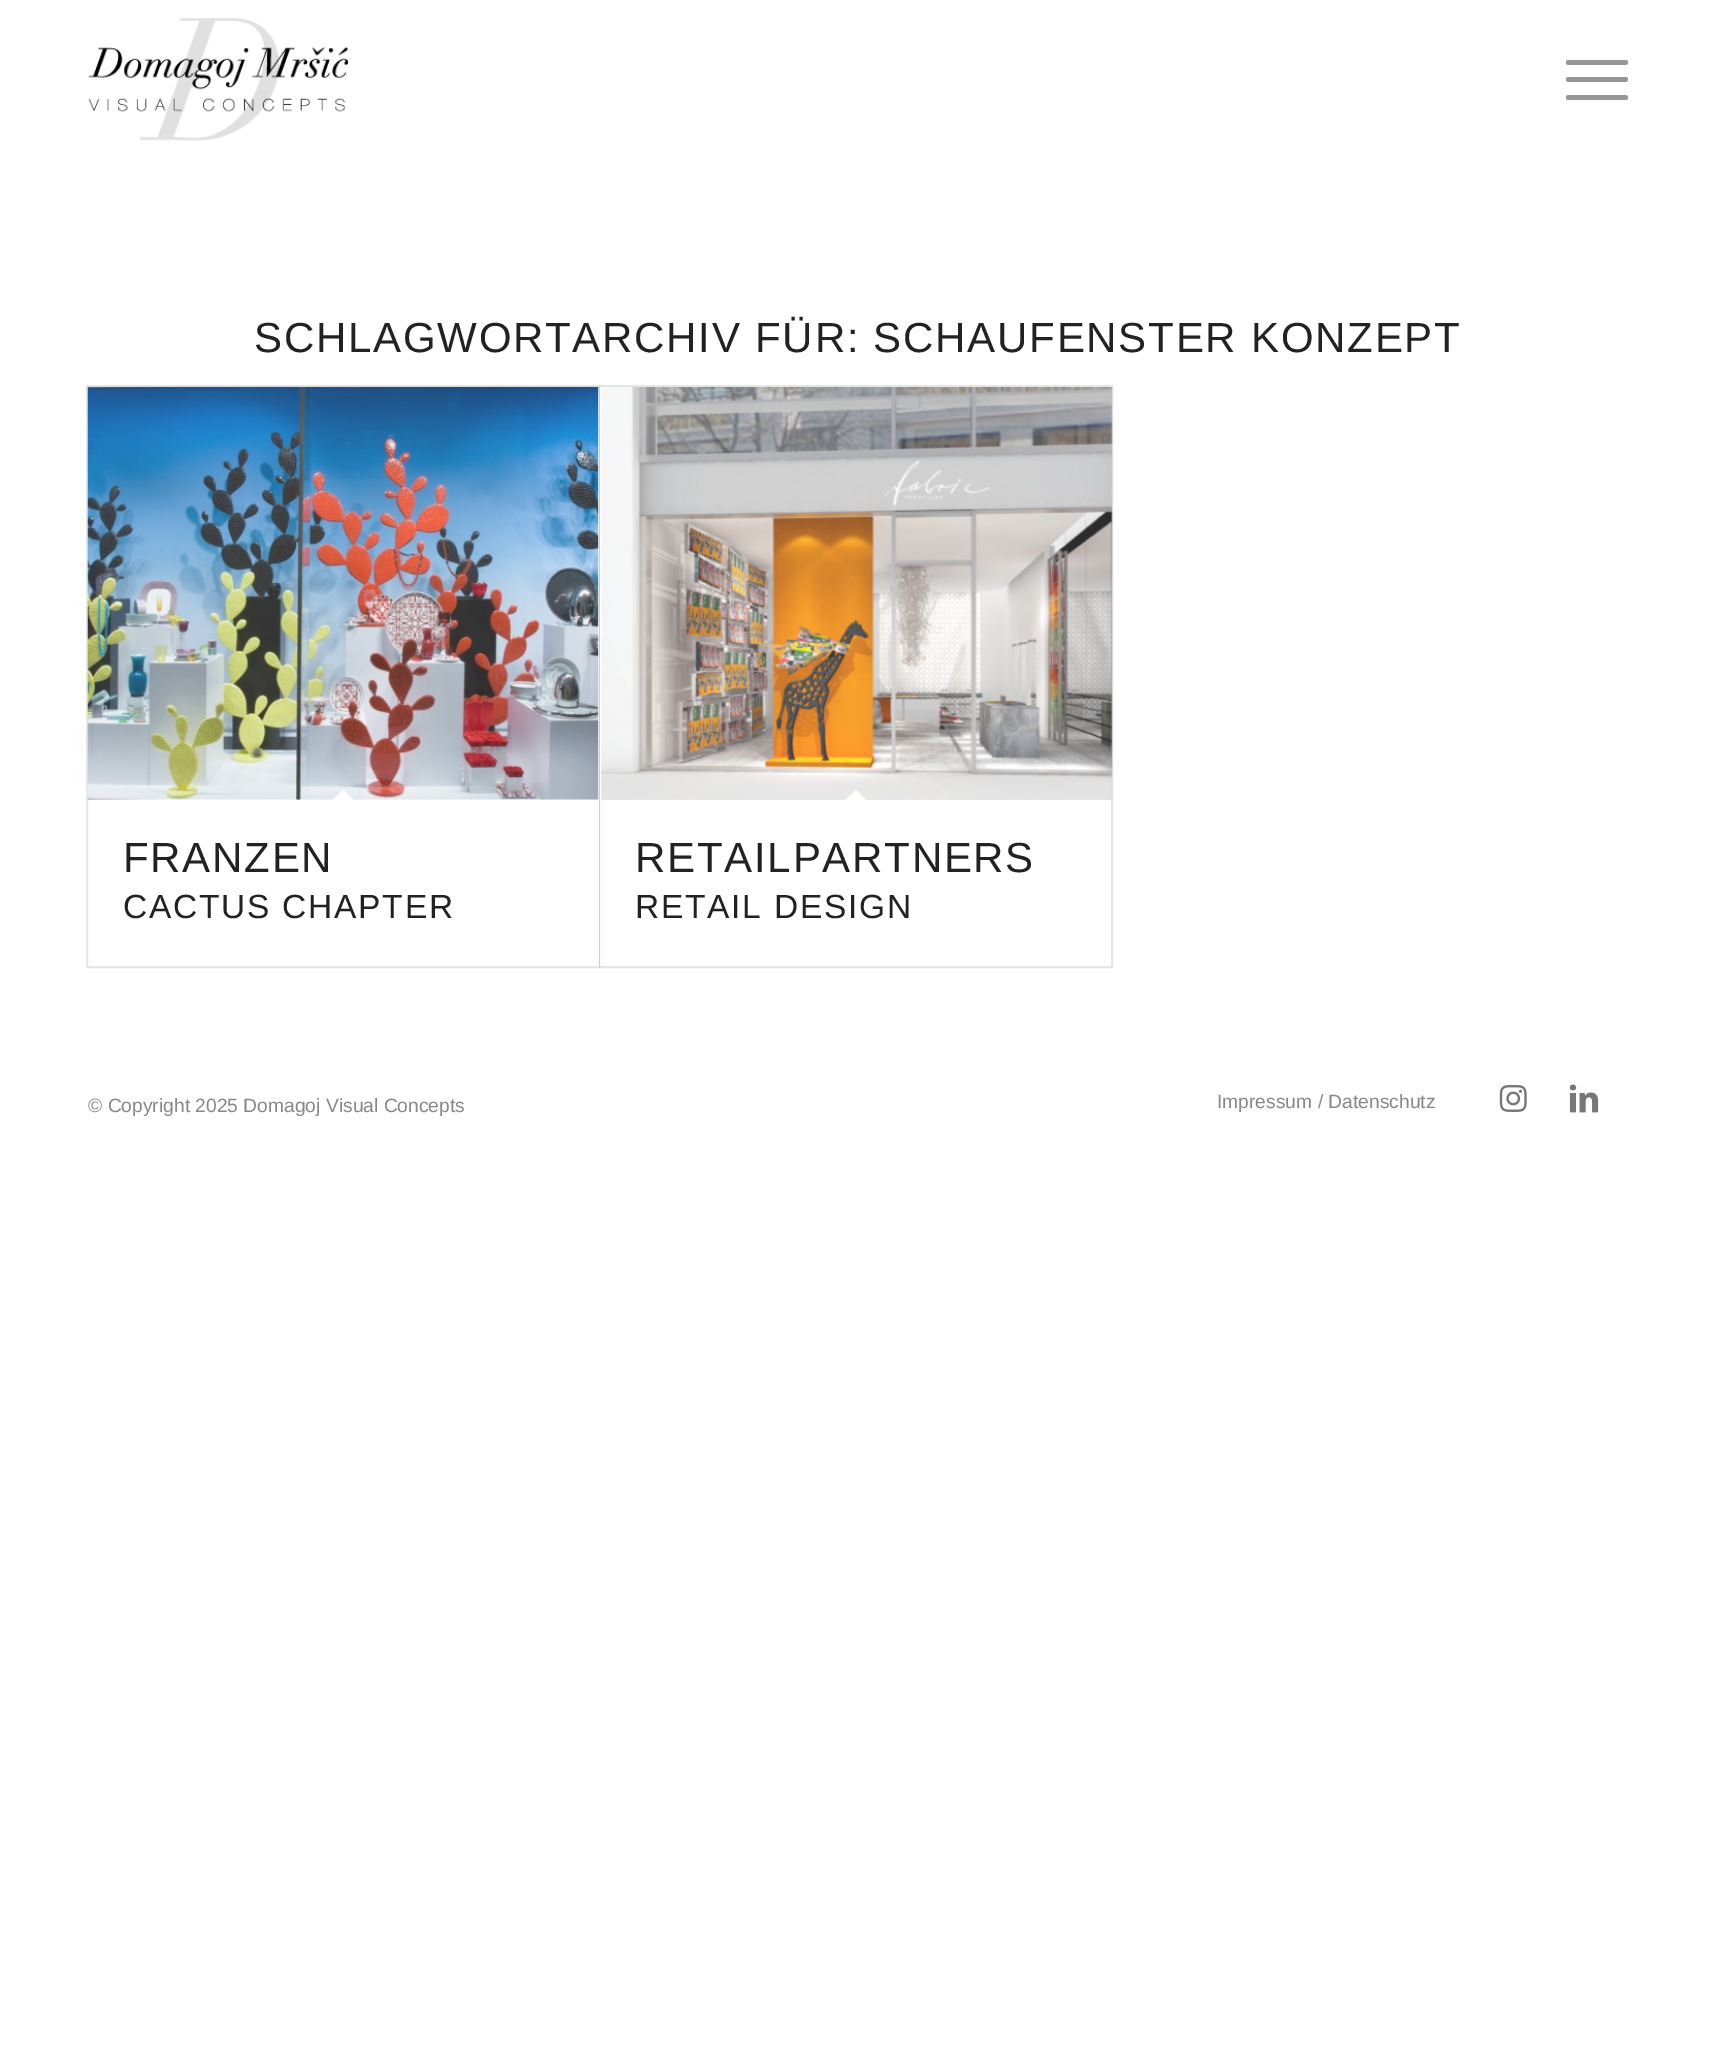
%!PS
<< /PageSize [1714 2053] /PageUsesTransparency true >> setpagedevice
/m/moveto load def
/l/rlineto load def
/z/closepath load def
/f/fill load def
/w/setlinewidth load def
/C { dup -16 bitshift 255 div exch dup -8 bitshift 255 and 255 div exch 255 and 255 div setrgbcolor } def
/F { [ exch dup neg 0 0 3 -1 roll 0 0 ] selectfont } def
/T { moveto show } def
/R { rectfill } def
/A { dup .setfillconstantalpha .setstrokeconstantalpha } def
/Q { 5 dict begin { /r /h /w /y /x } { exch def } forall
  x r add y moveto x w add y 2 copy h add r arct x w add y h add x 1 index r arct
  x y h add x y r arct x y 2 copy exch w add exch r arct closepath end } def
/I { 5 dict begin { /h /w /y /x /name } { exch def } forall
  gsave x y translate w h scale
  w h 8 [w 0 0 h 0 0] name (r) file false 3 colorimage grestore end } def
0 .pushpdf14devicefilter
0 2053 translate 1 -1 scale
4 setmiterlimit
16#FFFFFF C
0 0 1714 2053 R
(1.rgb) 88 18 260 123 I
16#969696 C
1566 77 62 5 2.5 Q f
1566 60 62 5 2.5 Q f
1566 95 62 5 2.5 Q f
/LiberationSans-Regular 42 F
16#222222 C
254 352 m 1.75 0 (SCHLAGWORTARCHIV FÜR: SCHAUFENSTER KONZEPT) ashow
16#E6E6E6 C
2 w
87 386 512 581 rectstroke
16#FFFFFF C
598 387 1 579 R
(2.rgb) 87 386 512 414 I
343 790 m 12.5 12 l -12.5 12.5 l -12.5 -12.5 l z f
16#222222 C
123 872 m 1.75 0 (FRANZEN) ashow
/LiberationSans-Regular 33.5 F
123 918 m 1.75 0 (CACTUS CHAPTER) ashow
0.1 A
16#000000 C
600 386 512 581 rectstroke
1 A
16#FFFFFF C
600 387 1 579 R
(3.rgb) 601 387 512 413 I
856 790 m 12 12 l -12 12.5 l -12.5 -12.5 l z f
/LiberationSans-Regular 42 F
16#222222 C
635 872 m 1.75 0 (RETAILPARTNERS) ashow
/LiberationSans-Regular 33.5 F
635 918 m 1.75 0 (RETAIL DESIGN) ashow
/LiberationSans-Regular 19.25 F
16#888888 C
(© Copyright 2025 Domagoj Visual Concepts) 88 1112 T
(Impressum / Datenschutz) 1217 1108 T
(4.rgb) 1499 1084 28 28 I
(5.rgb) 1569 1084 30 29 I
.poppdf14devicefilter showpage
